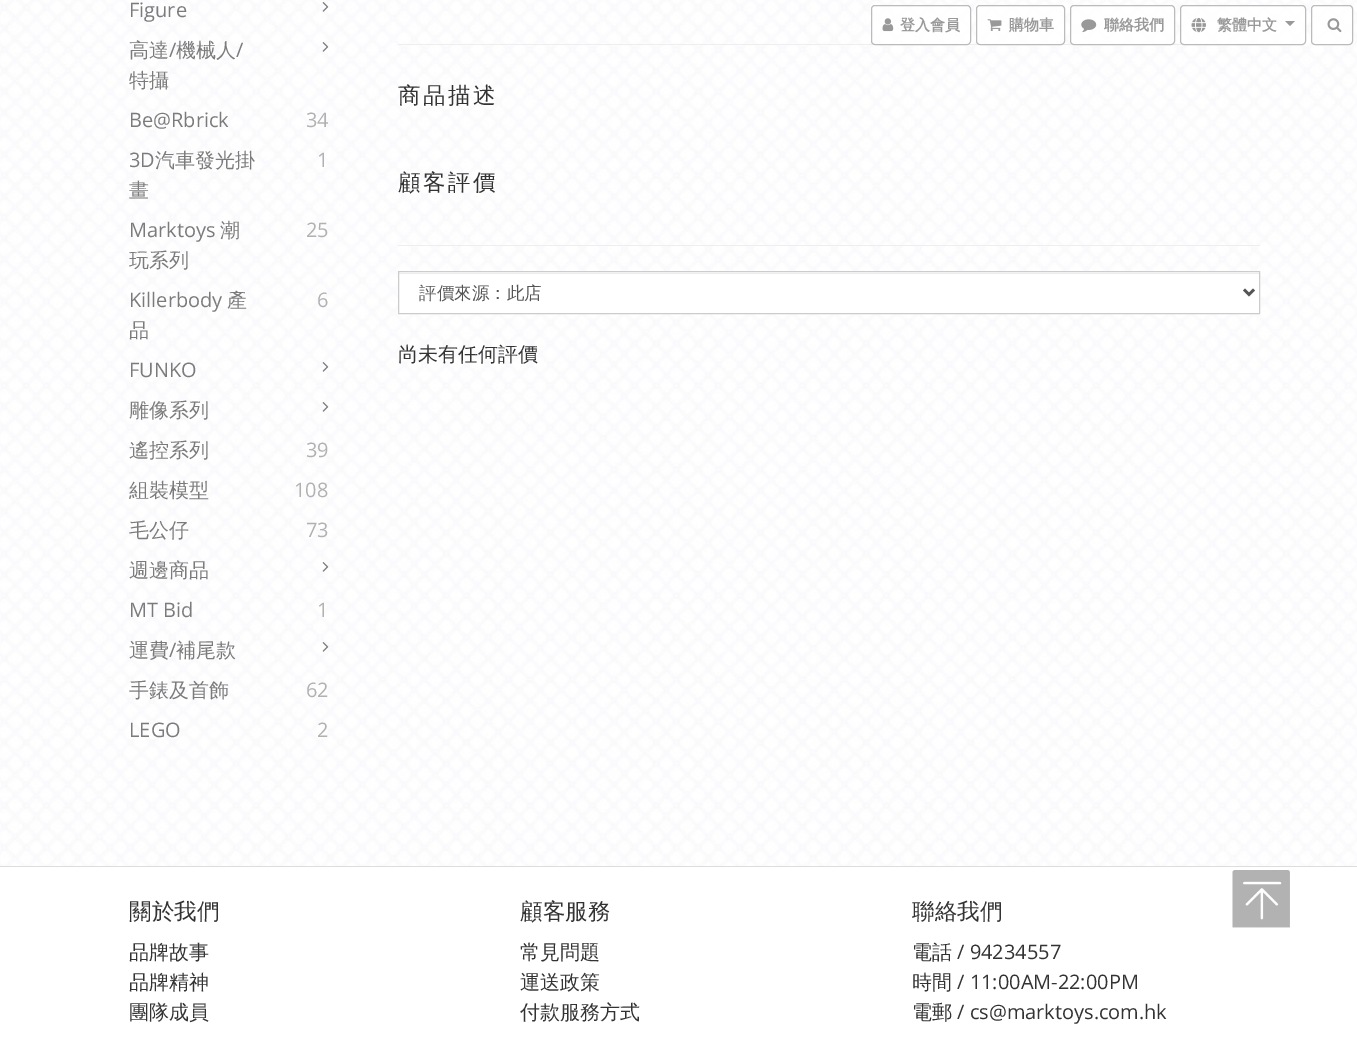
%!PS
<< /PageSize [1357 1046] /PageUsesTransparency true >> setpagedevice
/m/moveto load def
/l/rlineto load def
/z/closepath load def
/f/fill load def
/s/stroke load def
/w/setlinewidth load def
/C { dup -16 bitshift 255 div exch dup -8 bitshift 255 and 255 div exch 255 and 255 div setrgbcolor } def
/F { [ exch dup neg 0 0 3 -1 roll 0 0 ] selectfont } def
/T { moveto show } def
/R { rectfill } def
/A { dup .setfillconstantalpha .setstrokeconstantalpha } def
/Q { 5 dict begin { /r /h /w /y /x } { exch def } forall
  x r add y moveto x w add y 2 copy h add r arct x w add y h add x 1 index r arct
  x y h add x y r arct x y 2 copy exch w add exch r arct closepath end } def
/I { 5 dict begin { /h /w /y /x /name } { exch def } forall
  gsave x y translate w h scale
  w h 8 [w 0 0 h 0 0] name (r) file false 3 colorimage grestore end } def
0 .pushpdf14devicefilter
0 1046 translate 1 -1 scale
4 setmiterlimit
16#FFFFFF C
0 0 1357 1046 R
(1.rgb) 0 0 1357 866 I
/OpenSans-Regular 20 F
16#7B7B7C C
(Figure) 129 17 T
(2.rgb) 322 2 7 10 I
/WenQuanYiZenHei-Medium 20 F
(高達) 129 57 T
/OpenSans-Regular 20 F
(/) 169 57 T
/WenQuanYiZenHei-Medium 20 F
(機械人) 176 57 T
/OpenSans-Regular 20 F
(/) 236 57 T
/WenQuanYiZenHei-Medium 20 F
(特攝) 129 87 T
(3.rgb) 322 42 7 10 I
/OpenSans-Regular 20 F
(Be@Rbrick) 129 127 T
16#B1B1B2 C
(34) 306 127 T
16#7B7B7C C
(3D) 129 167 T
/WenQuanYiZenHei-Medium 20 F
(汽車發光掛) 155 167 T
(畫) 129 197 T
/OpenSans-Regular 20 F
16#B1B1B2 C
(1) 317 167 T
16#7B7B7C C
(Marktoys) 129 237 T
/WenQuanYiZenHei-Medium 20 F
(潮) 220 237 T
(玩系列) 129 267 T
/OpenSans-Regular 20 F
16#B1B1B2 C
(25) 306 237 T
16#7B7B7C C
(Killerbody) 129 307 T
/WenQuanYiZenHei-Medium 20 F
(產) 227 307 T
(品) 129 337 T
/OpenSans-Regular 20 F
16#B1B1B2 C
(6) 317 307 T
16#7B7B7C C
(FUNKO) 129 377 T
(4.rgb) 322 362 7 10 I
/WenQuanYiZenHei-Medium 20 F
(雕像系列) 129 417 T
(5.rgb) 322 402 7 10 I
(遙控系列) 129 457 T
/OpenSans-Regular 20 F
16#B1B1B2 C
(39) 306 457 T
/WenQuanYiZenHei-Medium 20 F
16#7B7B7C C
(組裝模型) 129 497 T
/OpenSans-Regular 20 F
16#B1B1B2 C
(108) 294 497 T
/WenQuanYiZenHei-Medium 20 F
16#7B7B7C C
(毛公仔) 129 537 T
/OpenSans-Regular 20 F
16#B1B1B2 C
(73) 306 537 T
/WenQuanYiZenHei-Medium 20 F
16#7B7B7C C
(週邊商品) 129 577 T
(6.rgb) 322 562 7 10 I
/OpenSans-Regular 20 F
(MT Bid) 129 617 T
16#B1B1B2 C
(1) 317 617 T
/WenQuanYiZenHei-Medium 20 F
16#7B7B7C C
(運費) 129 657 T
/OpenSans-Regular 20 F
(/) 169 657 T
/WenQuanYiZenHei-Medium 20 F
(補尾款) 176 657 T
(7.rgb) 322 642 7 10 I
(手錶及首飾) 129 697 T
/OpenSans-Regular 20 F
16#B1B1B2 C
(62) 306 697 T
16#7B7B7C C
(LEGO) 129 737 T
16#B1B1B2 C
(2) 317 737 T
16#EEEEEE C
398 44 862 1 R
/WenQuanYiZenHei-Medium 22.5 F
16#333333 C
398 103 m 2.5 0 (商品描述) ashow
398 190 m 2.5 0 (顧客評價) ashow
16#EEEEEE C
398 245 862 1 R
16#FFFFFF C
399 272 860 41 R
16#ECECEC C
399 273 860 1 R
16#CCCCCC C
398.5 271.5 861 42 rectstroke
16#555555 C
2.5 w
1244 289.5 m 5 5 l 5 -5 l s
/WenQuanYiZenHei-Medium 17.5 F
(評價來源：此店) 419 299 T
/WenQuanYiZenHei-Medium 20 F
16#333333 C
(尚未有任何評價) 398 361 T
16#DDDDDD C
0 866 1357 1 R
/WenQuanYiZenHei-Medium 22.5 F
16#333333 C
(關於我們) 129 919 T
/WenQuanYiZenHei-Medium 20 F
(品牌故事) 129 959 T
(品牌精神) 129 989 T
(團隊成員) 129 1019 T
/WenQuanYiZenHei-Medium 22.5 F
(顧客服務) 520 919 T
/WenQuanYiZenHei-Medium 20 F
(常見問題) 520 959 T
(運送政策) 520 989 T
(付款服務方式) 520 1019 T
/WenQuanYiZenHei-Medium 22.5 F
(聯絡我們) 912 919 T
/WenQuanYiZenHei-Medium 20 F
(電話) 912 959 T
/OpenSans-Regular 20 F
(/ 94234557) 957 959 T
/WenQuanYiZenHei-Medium 20 F
(時間) 912 989 T
/OpenSans-Regular 20 F
(/ 11:00AM-22:00PM) 957 989 T
/WenQuanYiZenHei-Medium 20 F
(電郵) 912 1019 T
/OpenSans-Regular 20 F
(/ cs@marktoys.com.hk) 957 1019 T
0.8 A
16#FFFFFF C
871 5 100 40 4 Q f
16#AAAAAA C
1 w
871.5 5.5 99 39 3.5 Q s
1 A
(8.rgb) 882 18 12 14 I
/WenQuanYiZenHei-Bold 15 F
16#999999 C
(登入會員) 900 30 T
0.8 A
16#FFFFFF C
976 5 89 40 4 Q f
16#AAAAAA C
976.5 5.5 88 39 3.5 Q s
1 A
(9.rgb) 987 19 15 12 I
16#999999 C
(購物車) 1009 30 T
0.8 A
16#FFFFFF C
1070 5 105 40 4 Q f
16#AAAAAA C
1070.5 5.5 104 39 3.5 Q s
1 A
(10.rgb) 1081 19 16 14 I
16#999999 C
(聯絡我們) 1104 30 T
0.8 A
16#FFFFFF C
1180 5 126 40 4 Q f
16#AAAAAA C
1180.5 5.5 125 39 3.5 Q s
1 A
(11.rgb) 1191 18 15 15 I
16#999999 C
(繁體中文) 1217 30 T
1285 21 m 10 0 l -5 5 l z f
0.8 A
16#FFFFFF C
1311.5 5.5 41 39 3.5 Q f
1 A
16#BBBBBB C
1311.5 5.5 41 39 3.5 Q s
(12.rgb) 1327 18 15 15 I
(13.rgb) 1232 870 58 58 I
.poppdf14devicefilter showpage
